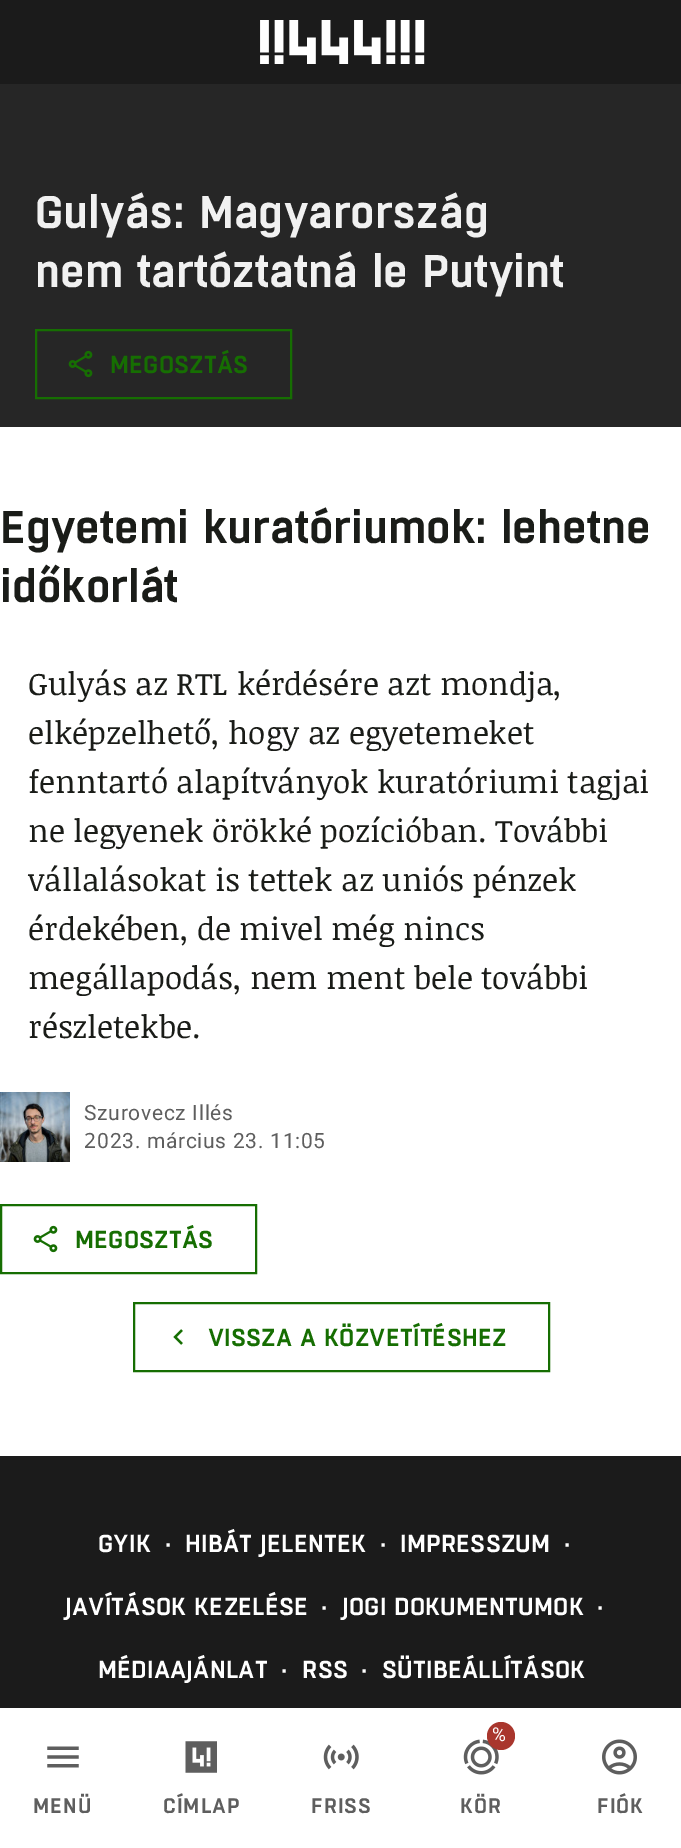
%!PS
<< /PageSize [681 1848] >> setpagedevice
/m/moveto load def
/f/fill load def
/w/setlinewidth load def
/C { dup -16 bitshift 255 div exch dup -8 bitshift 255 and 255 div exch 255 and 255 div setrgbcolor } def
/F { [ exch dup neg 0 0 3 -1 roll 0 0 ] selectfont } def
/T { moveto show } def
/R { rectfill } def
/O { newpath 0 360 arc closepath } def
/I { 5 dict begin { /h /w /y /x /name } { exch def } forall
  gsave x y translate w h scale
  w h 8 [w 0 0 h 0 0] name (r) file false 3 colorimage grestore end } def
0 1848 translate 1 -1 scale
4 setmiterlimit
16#FFFFFF C
0 0 681 1848 R
16#1B1B1B C
0 0 681 84 R
(1.rgb) 260 20 165 44 I
16#262626 C
0 84 681 343 R
/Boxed-SemiBold 45.5 F
16#F1F1F1 C
(Gulyás: Magyarország) 35 228 T
(nem tartóztatná le Putyint) 35 287 T
16#166E02 C
2 w
36 330 255 68 rectstroke
(2.rgb) 68 350 25 28 I
/Boxed-SemiBold 24.5 F
110 373 m .2 0 (MEGOSZTÁS) ashow
/Boxed-SemiBold 45.5 F
16#1A1C18 C
(Egyetemi kuratóriumok: lehetne) 0 543 T
(időkorlát) 0 602 T
/NoticiaText-Regular 31.5 F
(Gulyás az RTL kérdésére azt mondja,) 28 695 T
(elképzelhető, hogy az egyetemeket) 28 744 T
(fenntartó alapítványok kuratóriumi tagjai) 28 793 T
(ne legyenek örökké pozícióban. További) 28 842 T
(vállalásokat is tettek az uniós pénzek) 28 891 T
(érdekében, de mivel még nincs) 28 940 T
(megállapodás, nem ment bele további) 28 989 T
(részletekbe.) 28 1038 T
(3.rgb) 0 1092 70 70 I
/Roboto-Regular 21 F
16#5E5E5E C
84 1120 m .7 0 (Szurovecz Illés) ashow
/NotoSans-Regular 21 F
84 1148 m .7 0 (2) ashow
/Roboto-Regular 21 F
97 1148 m .7 0 (023. március 23. 11:05) ashow
16#166E02 C
1 1205 255 68 rectstroke
(4.rgb) 33 1225 25 28 I
/Boxed-SemiBold 24.5 F
75 1248 m .2 0 (MEGOSZTÁS) ashow
134 1303 415 68 rectstroke
(5.rgb) 173 1329 10 16 I
208 1346 m .2 0 (VISSZA A KÖZVETÍTÉSHEZ) ashow
16#1B1B1B C
0 1456 681 252 R
16#FFFFFF C
98 1552 m .2 0 (GYIK) ashow
165 1552 m .2 0 (·) ashow
185 1552 m .2 0 (HIBÁT JELENTEK) ashow
380 1552 m .2 0 (·) ashow
400 1552 m .2 0 (IMPRESSZUM) ashow
564 1552 m .2 0 (·) ashow
65 1615 m .2 0 (JAVÍTÁSOK KEZELÉSE) ashow
321 1615 m .2 0 (·) ashow
342 1615 m .2 0 (JOGI DOKUMENTUMOK) ashow
597 1615 m .2 0 (·) ashow
98 1678 m .2 0 (MÉDIAAJÁNLAT) ashow
281 1678 m .2 0 (·) ashow
302 1678 m .2 0 (RSS) ashow
361 1678 m .2 0 (·) ashow
382 1678 m .2 0 (SÜTIBEÁLLÍTÁSOK) ashow
(6.rgb) 47 1746 32 22 I
/Boxed-SemiBold 21 F
16#5E5E5E C
33 1813 m 1 0 (MENÜ) ashow
(7.rgb) 185 1741 32 32 I
163 1813 m 1 0 (CÍMLAP) ashow
(8.rgb) 323 1744 36 26 I
311 1813 m 1 0 (FRISS) ashow
(9.rgb) 463 1739 36 36 I
16#A9362D C
501 1736 14 O f
/Roboto-Regular 19 F
16#FFFFFF C
492 1741 m 1 0 (%) ashow
/Boxed-SemiBold 21 F
16#5E5E5E C
460 1813 m 1 0 (KÖR) ashow
(10.rgb) 602 1739 35 36 I
597 1813 m 1 0 (FIÓK) ashow
showpage
